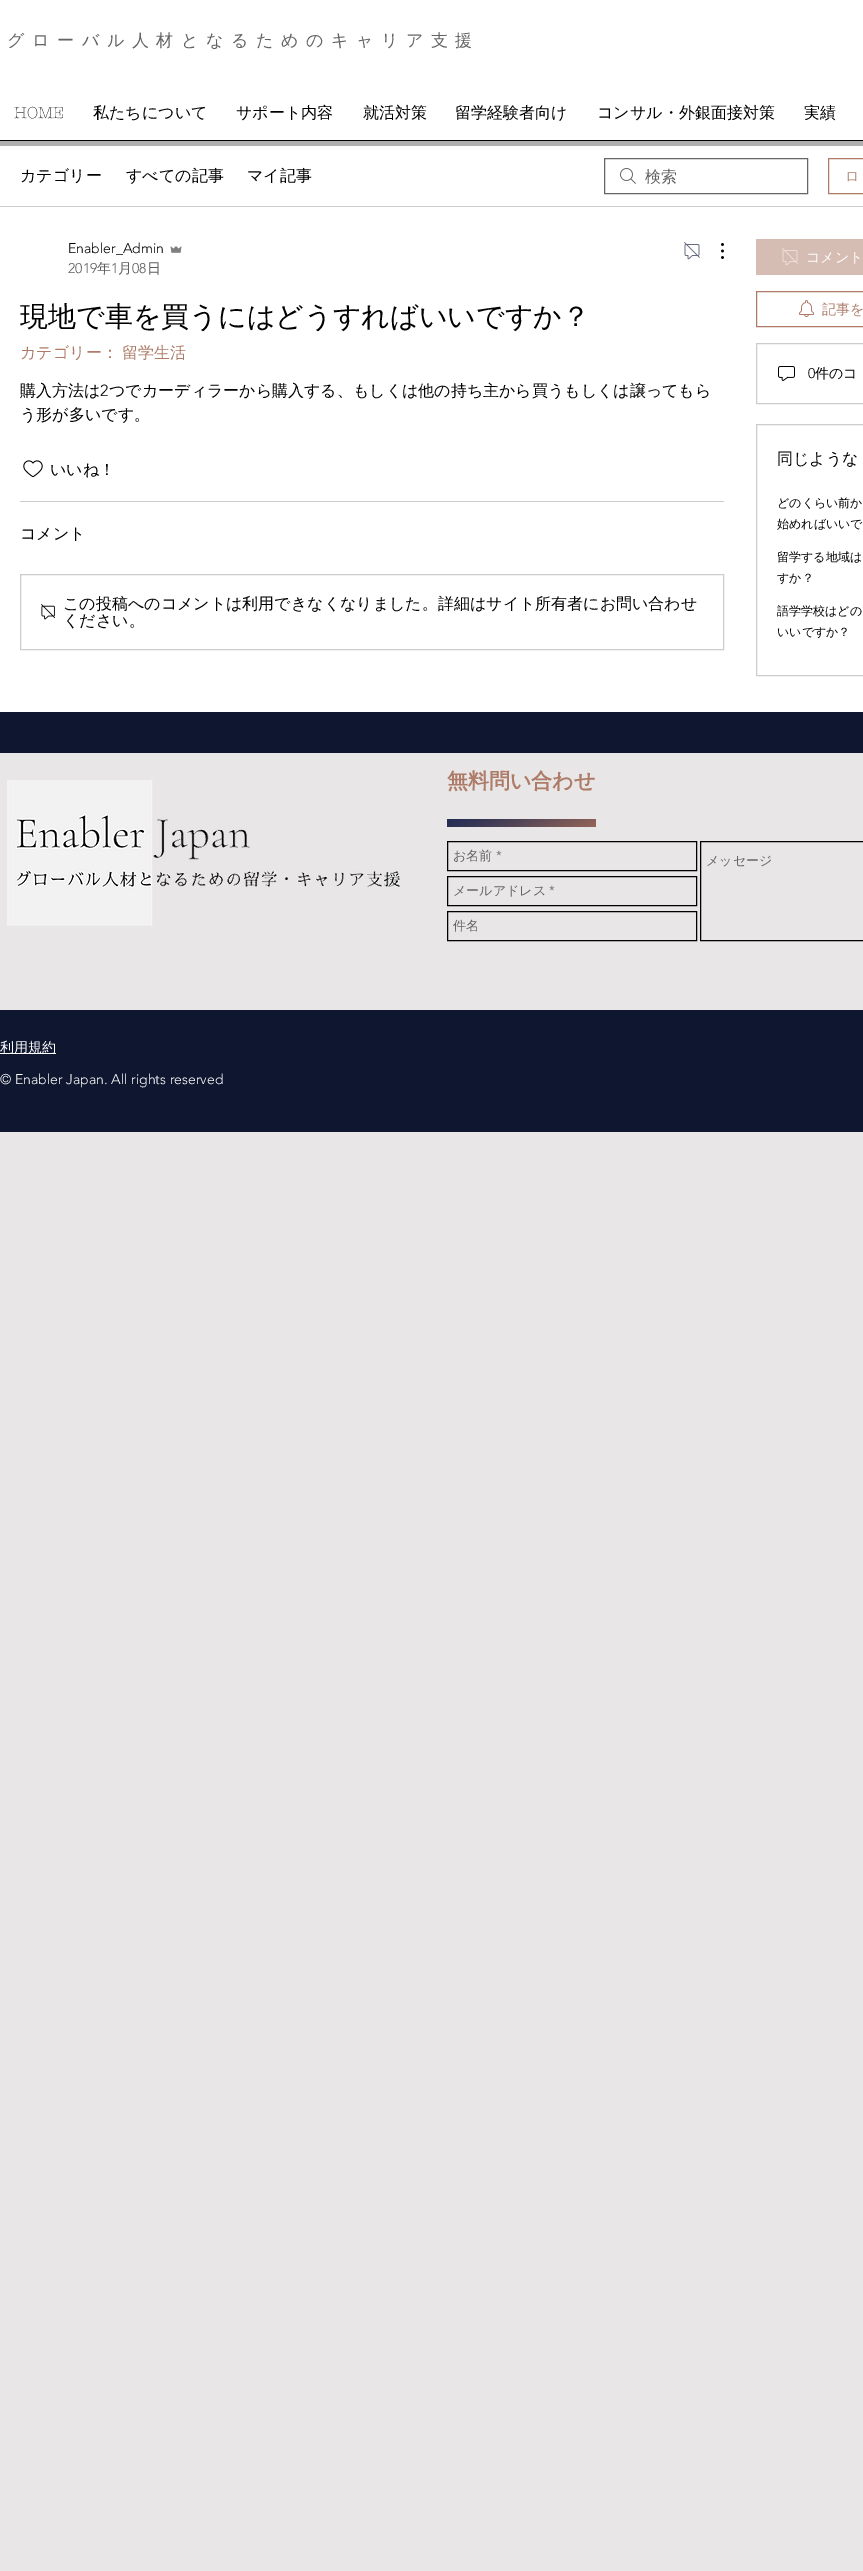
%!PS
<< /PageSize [863 2571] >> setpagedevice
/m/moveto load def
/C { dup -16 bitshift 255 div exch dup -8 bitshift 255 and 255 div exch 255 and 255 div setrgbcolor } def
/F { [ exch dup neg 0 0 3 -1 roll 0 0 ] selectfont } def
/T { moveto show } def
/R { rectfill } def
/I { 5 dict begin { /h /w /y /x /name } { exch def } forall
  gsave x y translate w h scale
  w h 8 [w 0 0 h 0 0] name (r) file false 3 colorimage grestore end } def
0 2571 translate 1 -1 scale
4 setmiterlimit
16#E8E6E6 C
0 0 863 2571 R
16#FFFFFF C
0 0 863 140 R
16#B0B0B0 C
0 141 863 5 R
/WenQuanYiZenHei-Medium 17 F
16#636363 C
7 46 m 7.6 0 (グローバル人材となるためのキャリア支援) ashow
/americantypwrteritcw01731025-Light 16 F
16#000000 C
(HOME) 14 118 T
/WenQuanYiZenHei-Medium 16 F
(私たちについて) 93 118 T
(サポート内容) 236 118 T
(就活対策) 363 118 T
(留学経験者向け) 455 118 T
(コンサル・外銀面接対策) 597 118 T
(実績) 804 118 T
0 140 863 1 R
16#FFFFFF C
0 146 863 566 R
16#CCCCCC C
0 206 863 1 R
16#000000 C
(カテゴリー) 20 181 T
(すべての記事) 126 181 T
(マイ記事) 247 181 T
(1.rgb) 620 168 16 16 I
16#666666 C
604.5 158.5 203 35 rectstroke
16#636363 C
(検索) 645 182 T
16#AD7B67 C
828.5 158.5 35 35 rectstroke
/WenQuanYiZenHei-Medium 14 F
(ロ) 845 181 T
/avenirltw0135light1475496-Light 14 F
16#000000 C
(Enabler_Admin) 68 253 T
(2.rgb) 170 246 12 7 I
16#5C5C5C C
(2019) 68 273 T
/WenQuanYiZenHei-Medium 14 F
(年) 97 273 T
/avenirltw0135light1475496-Light 14 F
(1) 111 273 T
/WenQuanYiZenHei-Medium 14 F
(月) 118 273 T
/avenirltw0135light1475496-Light 14 F
(08) 132 273 T
/WenQuanYiZenHei-Medium 14 F
(日) 147 273 T
(3.rgb) 684 242 16 18 I
(4.rgb) 721 243 3 16 I
/WenQuanYiZenHei-Medium 28 F
16#000000 C
(現地で車を買うにはどうすればいいですか？) 20 326 T
/WenQuanYiZenHei-Medium 16 F
16#AD7B67 C
(カテゴリー：) 20 358 T
(留学生活) 122 358 T
16#000000 C
(購入方法は) 20 396 T
/avenirltw0135light1475496-Light 16 F
(2) 100 396 T
/WenQuanYiZenHei-Medium 16 F
(つでカーディラーから購入する、もしくは他の持ち主から買うもしくは譲ってもら) 109 396 T
(う形が多いです。) 20 420 T
(5.rgb) 23 460 20 18 I
(いいね！) 50 475 T
16#CCCCCC C
20 501 704 1 R
16#000000 C
(コメント) 20 539 T
16#CCCCCC C
20.5 574.5 703 75 rectstroke
(6.rgb) 41 604 14 16 I
16#000000 C
(この投稿へのコメントは利用できなくなりました。詳細はサイト所有者にお問い合わせ) 63 609 T
(ください。) 63 626 T
16#D6BDB3 C
756 239 107 36 R
(7.rgb) 782 248 16 18 I
/WenQuanYiZenHei-Medium 14 F
16#FFFFFF C
(コメント) 806 262 T
16#AD7B67 C
756.5 291.5 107 35 rectstroke
(8.rgb) 799 300 15 17 I
(記事を) 822 314 T
16#CCCCCC C
756.5 343.5 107 60 rectstroke
(9.rgb) 778 366 17 15 I
/avenirltw0135light1475496-Light 14 F
16#000000 C
(0) 808 378 T
/WenQuanYiZenHei-Medium 14 F
(件のコ) 815 378 T
16#CCCCCC C
756.5 424.5 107 251 rectstroke
/WenQuanYiZenHei-Medium 16 F
16#000000 C
(同じような) 777 464 T
/WenQuanYiZenHei-Medium 12 F
(どのくらい前か) 777 507 T
(始めればいいで) 777 528 T
(留学する地域は) 777 561 T
(すか？) 777 582 T
(語学学校はどの) 777 615 T
(いいですか？) 777 636 T
16#0F162F C
0 712 863 420 R
16#E8E6E6 C
0 753 863 257 R
(10.rgb) 7 780 393 146 I
/WenQuanYiZenHei-Bold 21 F
16#AD7B67 C
(無料問い合わせ) 447 788 T
(11.rgb) 447 819 149 8 I
16#000000 C
447.5 841.5 249 29 rectstroke
/WenQuanYiZenHei-Medium 13 F
16#636363 C
(お名前) 453 860 T
/avenirltw0135light1475496-Light 13 F
(*) 496 860 T
16#000000 C
700.5 841.5 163 99 rectstroke
/WenQuanYiZenHei-Medium 13 F
16#636363 C
(メッセージ) 706 865 T
16#000000 C
447.5 876.5 249 29 rectstroke
16#636363 C
(メールアドレス) 453 895 T
/avenirltw0135light1475496-Light 13 F
(*) 549 895 T
16#000000 C
447.5 911.5 249 29 rectstroke
/WenQuanYiZenHei-Medium 13 F
16#636363 C
(件名) 453 930 T
16#FFFFFF C
0 1053 56 1 R
/WenQuanYiZenHei-Medium 14 F
(利用規約) 0 1052 T
/avenirltw0135light1475496-Light 14 F
(© Enabler Japan. All rights reserved) 0 1084 T
showpage
